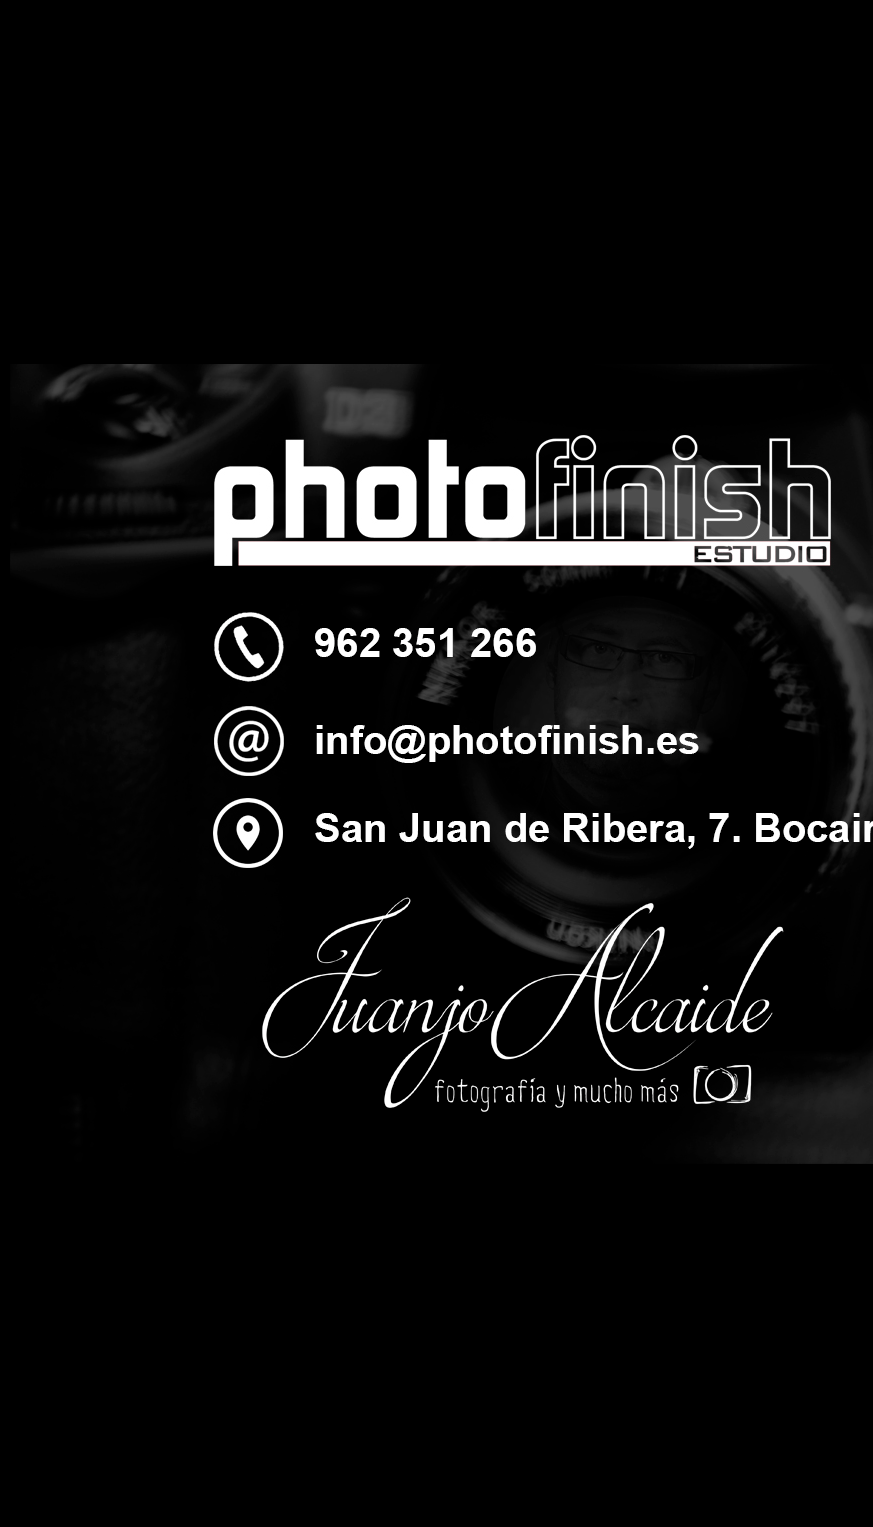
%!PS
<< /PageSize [873 1527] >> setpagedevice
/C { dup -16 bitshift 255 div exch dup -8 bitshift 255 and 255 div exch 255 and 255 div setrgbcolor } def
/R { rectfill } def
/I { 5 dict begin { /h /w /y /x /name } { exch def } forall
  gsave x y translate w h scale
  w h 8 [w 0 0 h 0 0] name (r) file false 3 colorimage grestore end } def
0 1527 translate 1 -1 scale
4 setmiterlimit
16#000000 C
0 0 873 1527 R
(1.rgb) 10 364 863 800 I
showpage
